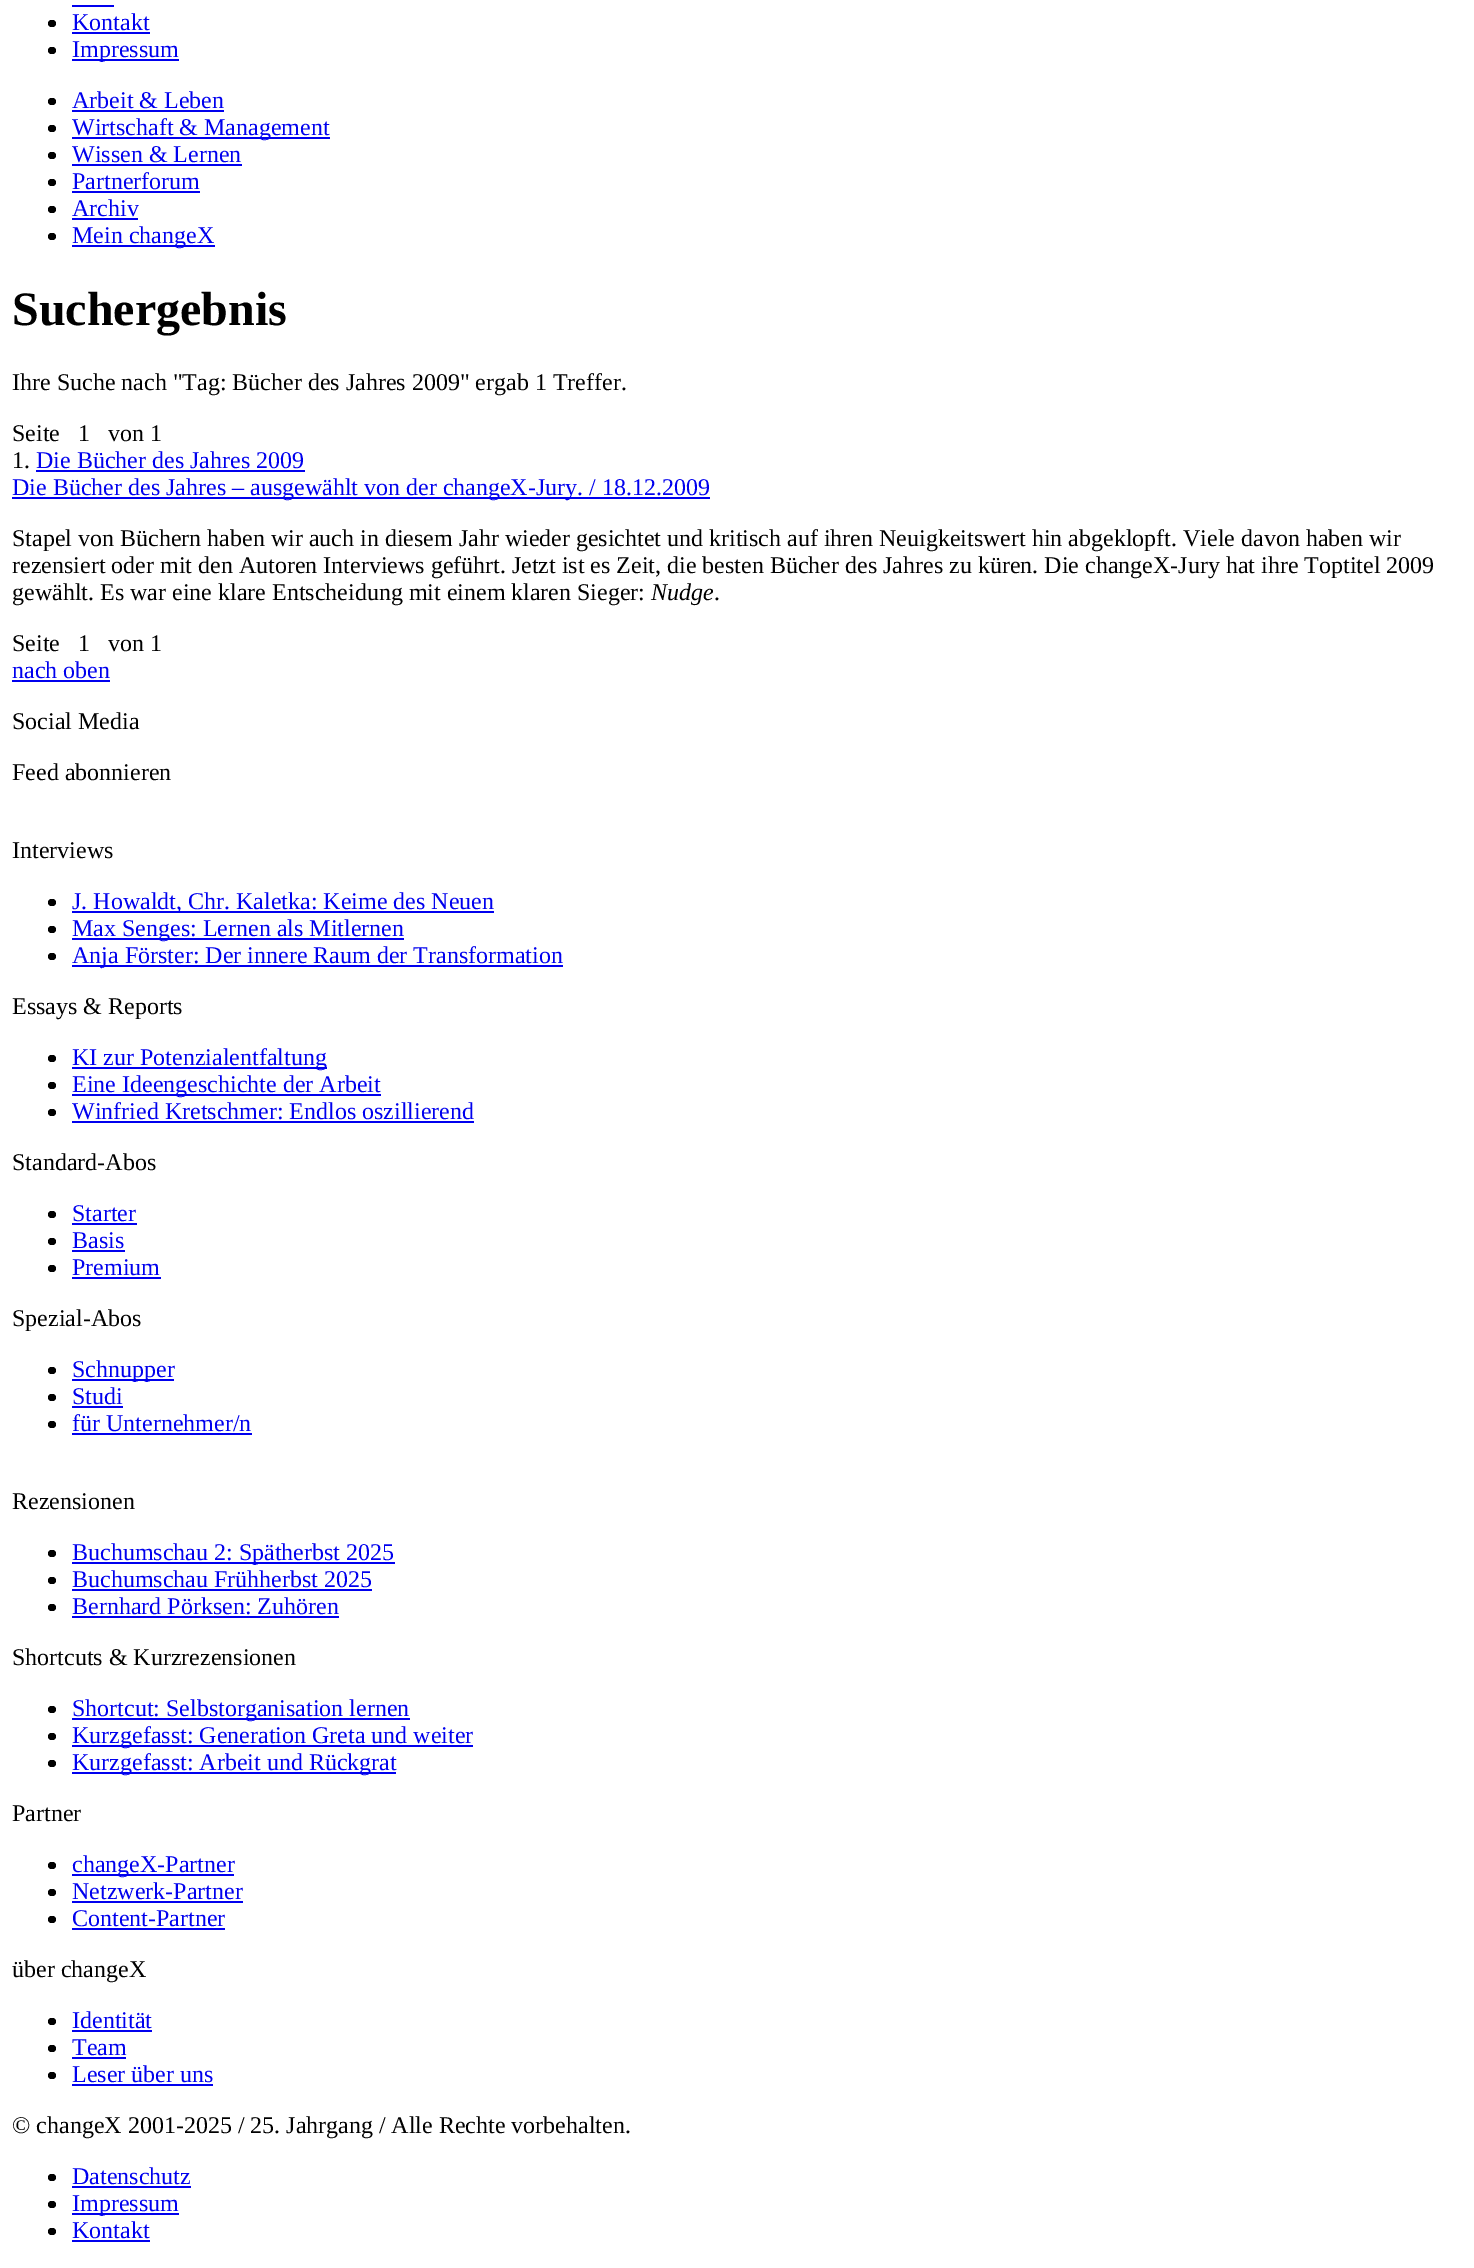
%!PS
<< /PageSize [1474 2268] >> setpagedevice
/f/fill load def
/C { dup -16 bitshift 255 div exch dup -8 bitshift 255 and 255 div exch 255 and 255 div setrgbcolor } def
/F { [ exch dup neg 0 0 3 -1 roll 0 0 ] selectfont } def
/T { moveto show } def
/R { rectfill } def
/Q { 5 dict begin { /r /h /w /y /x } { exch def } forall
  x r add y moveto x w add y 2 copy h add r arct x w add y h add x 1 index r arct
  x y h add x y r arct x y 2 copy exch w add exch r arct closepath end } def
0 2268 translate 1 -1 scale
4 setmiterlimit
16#FFFFFF C
0 0 1474 2268 R
16#0000EE C
72 5 42 2 R
16#000000 C
48 20 8 7 3.5 Q f
/LiberationSerif-Regular 24 F
16#0000EE C
(Kontakt) 72 30 T
72 32 78 2 R
16#000000 C
48 47 8 7 3.5 Q f
16#0000EE C
72 59 107 2 R
(Impressum) 72 57 T
16#000000 C
48 98 8 7 3.5 Q f
16#0000EE C
(Arbeit & Leben) 72 108 T
72 110 152 2 R
16#000000 C
48 125 8 7 3.5 Q f
16#0000EE C
72 137 258 2 R
(Wirtschaft & Management) 72 135 T
16#000000 C
48 152 8 7 3.5 Q f
16#0000EE C
(Wissen & Lernen) 72 162 T
72 164 170 2 R
16#000000 C
48 179 8 7 3.5 Q f
16#0000EE C
(Partnerforum) 72 189 T
72 191 128 2 R
16#000000 C
48 206 8 7 3.5 Q f
16#0000EE C
(Archiv) 72 216 T
72 218 66 2 R
16#000000 C
48 233 8 7 3.5 Q f
16#0000EE C
72 245 143 2 R
(Mein changeX) 72 243 T
/LiberationSerif-Bold 48 F
16#000000 C
(Suchergebnis) 12 325 T
/LiberationSerif-Regular 24 F
(Ihre Suche nach "Tag: Bücher des Jahres 2009" ergab 1 Treffer.) 12 390 T
(Seite) 12 441 T
(1) 78 441 T
(von 1) 108 441 T
(1.) 12 468 T
16#0000EE C
(Die Bücher des Jahres 2009) 36 468 T
36 470 269 2 R
12 497 698 2 R
(Die Bücher des Jahres – ausgewählt von der changeX-Jury. / 18.12.2009) 12 495 T
16#000000 C
(Stapel von Büchern haben wir auch in diesem Jahr wieder gesichtet und kritisch auf ihren Neuigkeitswert hin abgeklopft. Viele davon haben wir) 12 546 T
(rezensiert oder mit den Autoren Interviews geführt. Jetzt ist es Zeit, die besten Bücher des Jahres zu küren. Die changeX-Jury hat ihre Toptitel 2009) 12 573 T
(gewählt. Es war eine klare Entscheidung mit einem klaren Sieger:) 12 600 T
/LiberationSerif-Italic 24 F
(Nudge) 651 600 T
/LiberationSerif-Regular 24 F
(.) 714 600 T
(Seite) 12 651 T
(1) 78 651 T
(von 1) 108 651 T
16#0000EE C
(nach oben) 12 678 T
12 680 98 2 R
16#000000 C
(Social Media) 12 729 T
(Feed abonnieren) 12 780 T
(Interviews) 12 858 T
48 899 8 7 3.5 Q f
16#0000EE C
72 911 422 2 R
(J. Howaldt, Chr. Kaletka: Keime des Neuen) 72 909 T
16#000000 C
48 926 8 7 3.5 Q f
16#0000EE C
72 938 332 2 R
(Max Senges: Lernen als Mitlernen) 72 936 T
16#000000 C
48 953 8 7 3.5 Q f
16#0000EE C
72 965 491 2 R
(Anja Förster: Der innere Raum der Transformation) 72 963 T
16#000000 C
(Essays & Reports) 12 1014 T
48 1055 8 7 3.5 Q f
16#0000EE C
72 1067 255 2 R
(KI zur Potenzialentfaltung) 72 1065 T
16#000000 C
48 1082 8 7 3.5 Q f
16#0000EE C
72 1094 309 2 R
(Eine Ideengeschichte der Arbeit) 72 1092 T
16#000000 C
48 1109 8 7 3.5 Q f
16#0000EE C
(Winfried Kretschmer: Endlos oszillierend) 72 1119 T
72 1121 402 2 R
16#000000 C
(Standard-Abos) 12 1170 T
48 1211 8 7 3.5 Q f
16#0000EE C
(Starter) 72 1221 T
72 1223 65 2 R
16#000000 C
48 1238 8 7 3.5 Q f
16#0000EE C
(Basis) 72 1248 T
72 1250 53 2 R
16#000000 C
48 1265 8 7 3.5 Q f
16#0000EE C
(Premium) 72 1275 T
72 1277 89 2 R
16#000000 C
(Spezial-Abos) 12 1326 T
48 1367 8 7 3.5 Q f
16#0000EE C
72 1379 102 2 R
(Schnupper) 72 1377 T
16#000000 C
48 1394 8 7 3.5 Q f
16#0000EE C
(Studi) 72 1404 T
72 1406 51 2 R
16#000000 C
48 1421 8 7 3.5 Q f
16#0000EE C
(für Unternehmer/n) 72 1431 T
72 1433 180 2 R
16#000000 C
(Rezensionen) 12 1509 T
48 1550 8 7 3.5 Q f
16#0000EE C
72 1562 323 2 R
(Buchumschau 2: Spätherbst 2025) 72 1560 T
16#000000 C
48 1577 8 7 3.5 Q f
16#0000EE C
(Buchumschau Frühherbst 2025) 72 1587 T
72 1589 300 2 R
16#000000 C
48 1604 8 7 3.5 Q f
16#0000EE C
(Bernhard Pörksen: Zuhören) 72 1614 T
72 1616 267 2 R
16#000000 C
(Shortcuts & Kurzrezensionen) 12 1665 T
48 1706 8 7 3.5 Q f
16#0000EE C
72 1718 338 2 R
(Shortcut: Selbstorganisation lernen) 72 1716 T
16#000000 C
48 1733 8 7 3.5 Q f
16#0000EE C
72 1745 401 2 R
(Kurzgefasst: Generation Greta und weiter) 72 1743 T
16#000000 C
48 1760 8 7 3.5 Q f
16#0000EE C
72 1772 324 2 R
(Kurzgefasst: Arbeit und Rückgrat) 72 1770 T
16#000000 C
(Partner) 12 1821 T
48 1862 8 7 3.5 Q f
16#0000EE C
72 1874 162 2 R
(changeX-Partner) 72 1872 T
16#000000 C
48 1889 8 7 3.5 Q f
16#0000EE C
(Netzwerk-Partner) 72 1899 T
72 1901 171 2 R
16#000000 C
48 1916 8 7 3.5 Q f
16#0000EE C
(Content-Partner) 72 1926 T
72 1928 153 2 R
16#000000 C
(über changeX) 12 1977 T
48 2018 8 7 3.5 Q f
16#0000EE C
(Identität) 72 2028 T
72 2030 80 2 R
16#000000 C
48 2045 8 7 3.5 Q f
16#0000EE C
(Team) 72 2055 T
72 2057 54 2 R
16#000000 C
48 2072 8 7 3.5 Q f
16#0000EE C
(Leser über uns) 72 2082 T
72 2084 141 2 R
16#000000 C
(© changeX 2001-2025 / 25. Jahrgang / Alle Rechte vorbehalten.) 12 2133 T
48 2174 8 7 3.5 Q f
16#0000EE C
(Datenschutz) 72 2184 T
72 2186 119 2 R
16#000000 C
48 2201 8 7 3.5 Q f
16#0000EE C
72 2213 107 2 R
(Impressum) 72 2211 T
16#000000 C
48 2228 8 7 3.5 Q f
16#0000EE C
(Kontakt) 72 2238 T
72 2240 78 2 R
showpage
